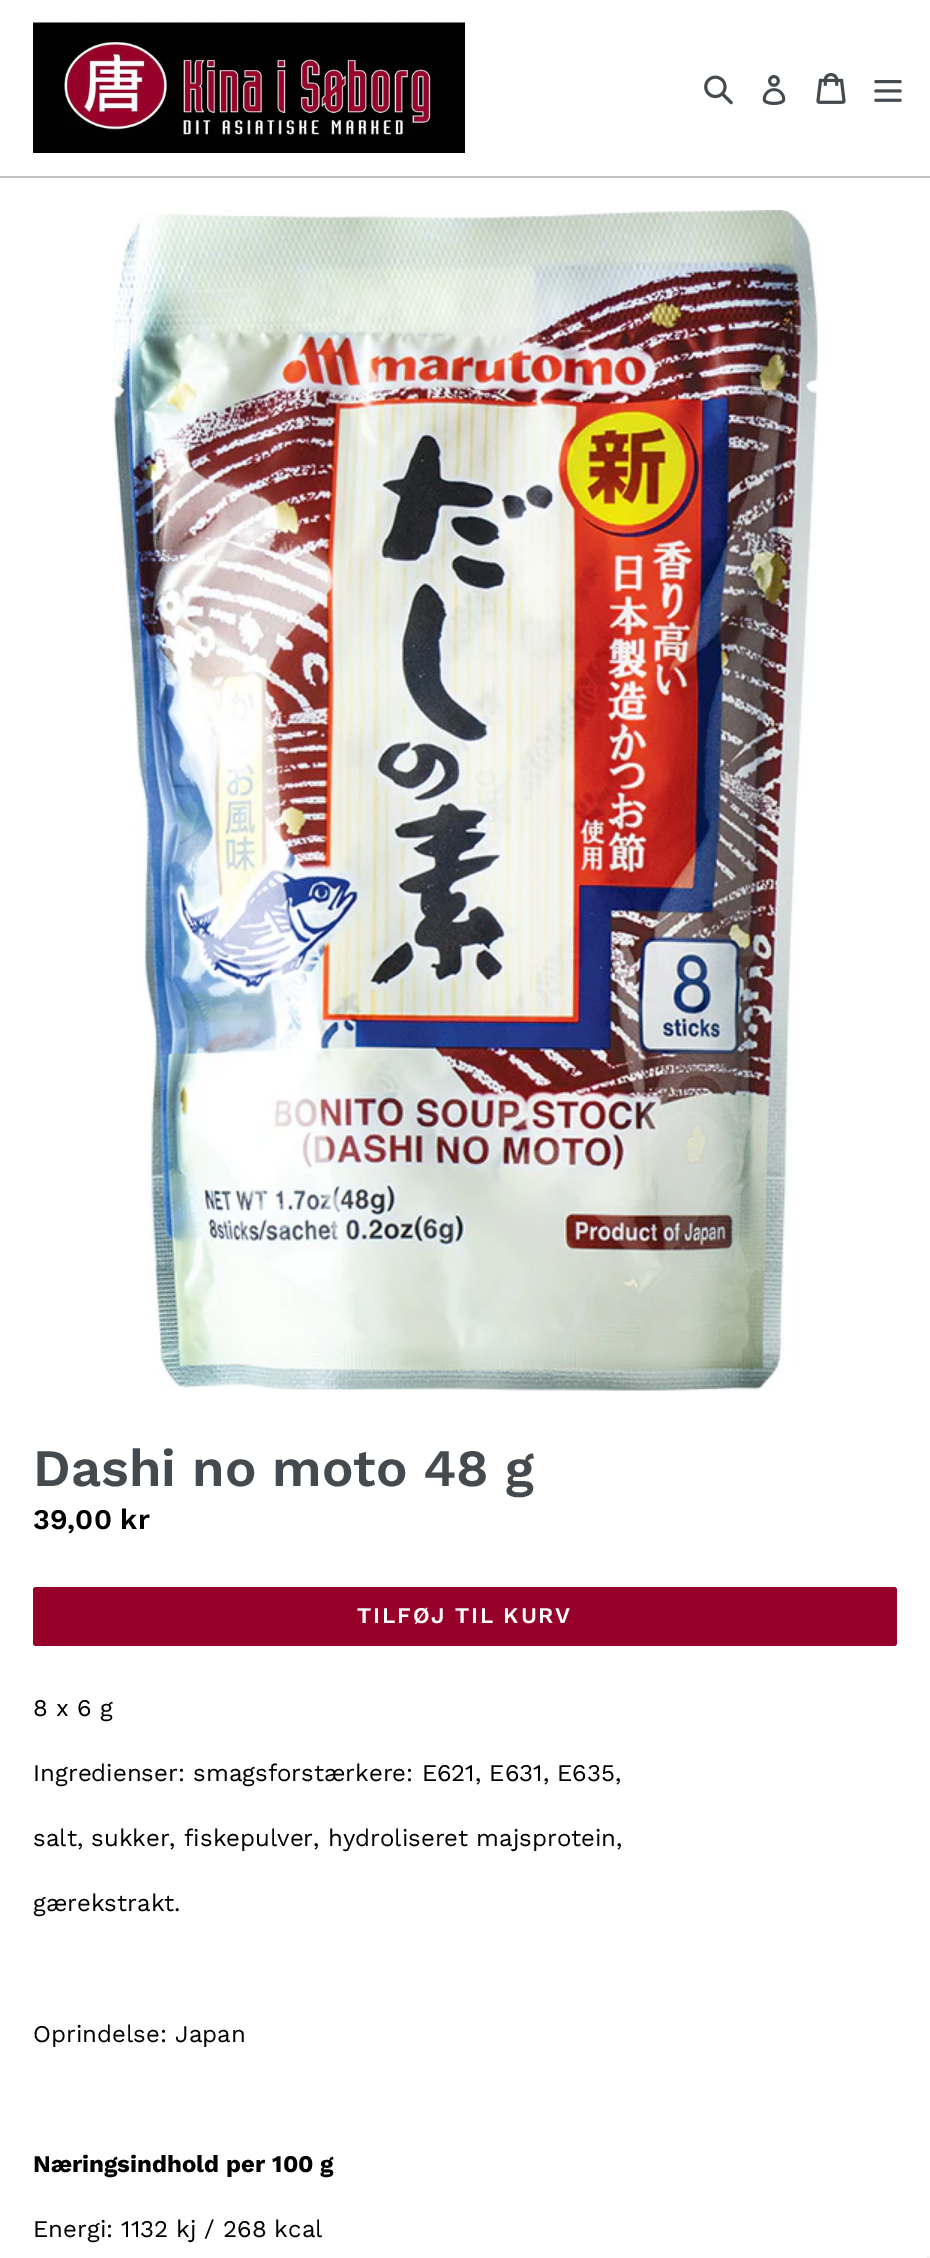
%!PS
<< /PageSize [930 2258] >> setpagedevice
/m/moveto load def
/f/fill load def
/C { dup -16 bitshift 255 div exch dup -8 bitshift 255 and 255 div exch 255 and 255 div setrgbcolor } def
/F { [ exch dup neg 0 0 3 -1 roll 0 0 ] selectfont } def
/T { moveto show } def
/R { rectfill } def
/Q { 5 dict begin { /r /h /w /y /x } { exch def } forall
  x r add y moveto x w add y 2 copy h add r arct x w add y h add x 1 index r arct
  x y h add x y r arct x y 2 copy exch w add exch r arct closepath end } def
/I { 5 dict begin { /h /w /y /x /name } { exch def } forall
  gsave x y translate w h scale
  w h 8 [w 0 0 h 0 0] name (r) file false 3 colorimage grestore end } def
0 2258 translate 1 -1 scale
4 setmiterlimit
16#FFFFFF C
0 0 930 2258 R
16#C4BFC0 C
0 176 930 2 R
(1.rgb) 33 22 432 131 I
(2.rgb) 704 75 29 30 I
(3.rgb) 762 75 24 30 I
(4.rgb) 816 72 30 32 I
(5.rgb) 874 80 28 22 I
(6.rgb) 112 210 706 1181 I
/WorkSans-SemiBold 52.5 F
16#454A4E C
(Dashi no moto 48 g) 33 1486 T
/WorkSans-SemiBold 28.5 F
16#000000 C
(39,00 kr) 33 1529 T
16#960029 C
33 1587 864 59 3 Q f
/WorkSans-SemiBold 22.5 F
16#FFFFFF C
357 1623 m 1.75 0 (TILFØJ TIL KURV) ashow
/WorkSans-Regular 24 F
16#000000 C
(8 x 6 g) 33 1716 T
(Ingredienser: smagsforstærkere: E621, E631, E635,) 33 1781 T
(salt, sukker, fiskepulver, hydroliseret majsprotein,) 33 1846 T
(gærekstrakt.) 33 1911 T
(Oprindelse: Japan) 33 2042 T
/WorkSans-Bold 24 F
(Næringsindhold per 100 g) 33 2172 T
/WorkSans-Regular 24 F
(Energi: 1132 kj / 268 kcal) 33 2237 T
16#F5F5F5 C
927 2256 3 2 R
showpage
